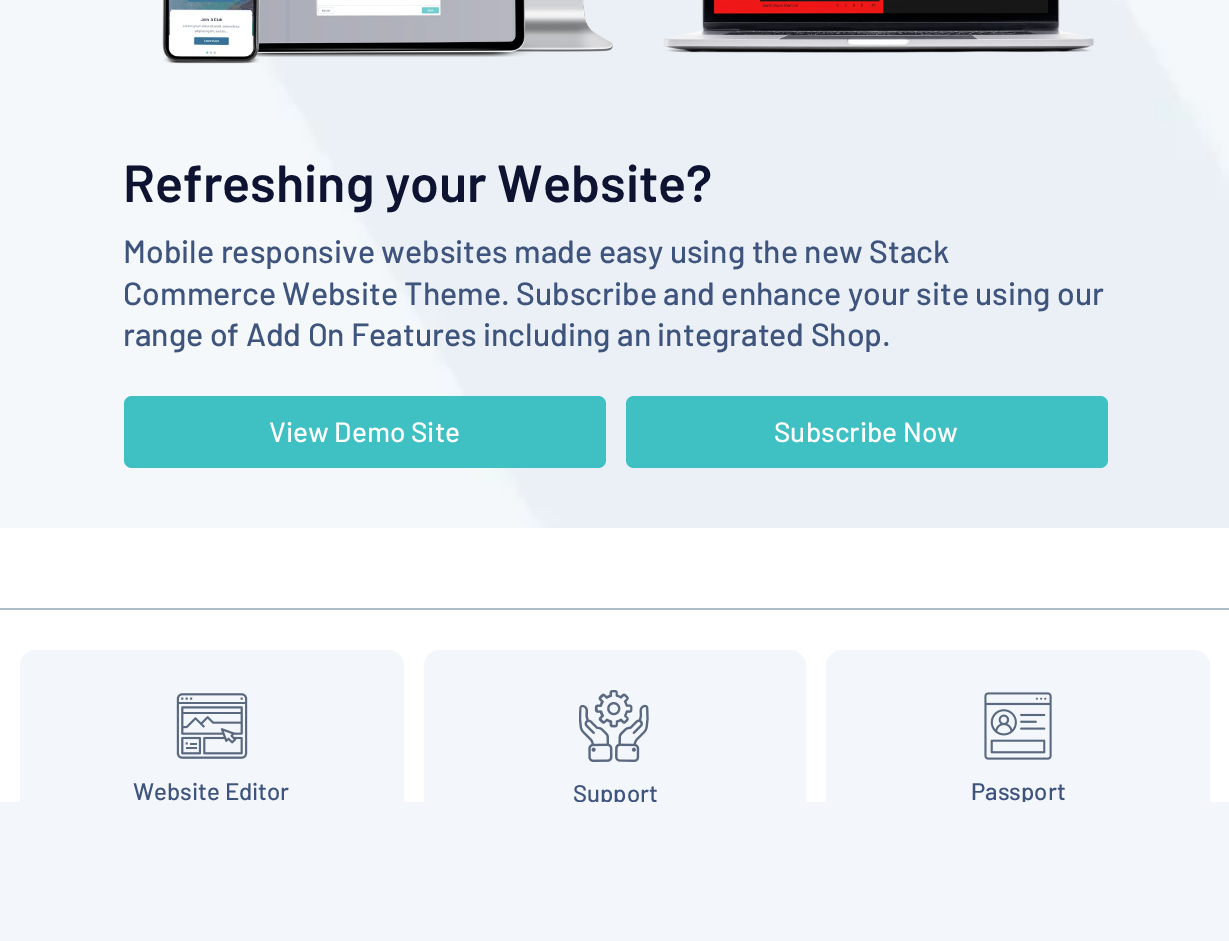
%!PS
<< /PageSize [1229 941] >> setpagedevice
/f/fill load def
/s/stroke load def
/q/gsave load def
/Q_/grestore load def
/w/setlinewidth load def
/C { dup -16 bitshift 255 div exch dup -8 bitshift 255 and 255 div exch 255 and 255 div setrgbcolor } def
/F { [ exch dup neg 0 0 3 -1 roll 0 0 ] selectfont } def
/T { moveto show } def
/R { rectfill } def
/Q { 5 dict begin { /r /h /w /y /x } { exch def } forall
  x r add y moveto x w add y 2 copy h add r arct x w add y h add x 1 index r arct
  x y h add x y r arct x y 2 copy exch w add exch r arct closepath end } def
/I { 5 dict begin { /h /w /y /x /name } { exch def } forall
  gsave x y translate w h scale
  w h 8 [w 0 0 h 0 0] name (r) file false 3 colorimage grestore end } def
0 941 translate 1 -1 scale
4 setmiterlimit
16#FFFFFF C
0 0 1229 941 R
(1.rgb) 0 0 1229 528 I
(2.rgb) 162 0 932 64 I
/Barlow-SemiBold 52 F
16#0D1330 C
(Refreshing your Website?) 123 202 T
/Barlow-Medium 32 F
16#3E547D C
(Mobile responsive websites made easy using the new Stack) 123 263 T
(Commerce Website Theme. Subscribe and enhance your site using our) 123 305 T
(range of Add On Features including an integrated Shop.) 123 346 T
16#3FC0C3 C
124 396 482 72 8 Q f
/Barlow-Medium 28 F
16#FFFFFF C
(View Demo Site) 269 442 T
16#3FC0C3 C
626 396 482 72 8 Q f
16#FFFFFF C
(Subscribe Now) 774 442 T
16#AFBDCA C
0 608 1229 2 R
16#F3F7FB C
22 652 380 196 14 Q q f Q_
4 w
s
(3.rgb) 176 693 72 66 I
/Barlow-Medium 24 F
16#3E547D C
(Website Editor) 133 800 T
16#F3F7FB C
426 652 378 196 14 Q q f Q_
s
(4.rgb) 579 690 70 72 I
16#3E547D C
(Support) 573 802 T
16#F3F7FB C
828 652 380 196 14 Q q f Q_
s
(5.rgb) 984 692 68 68 I
16#3E547D C
(Passport) 971 800 T
16#F3F7FB C
0 802 1229 139 R
showpage
